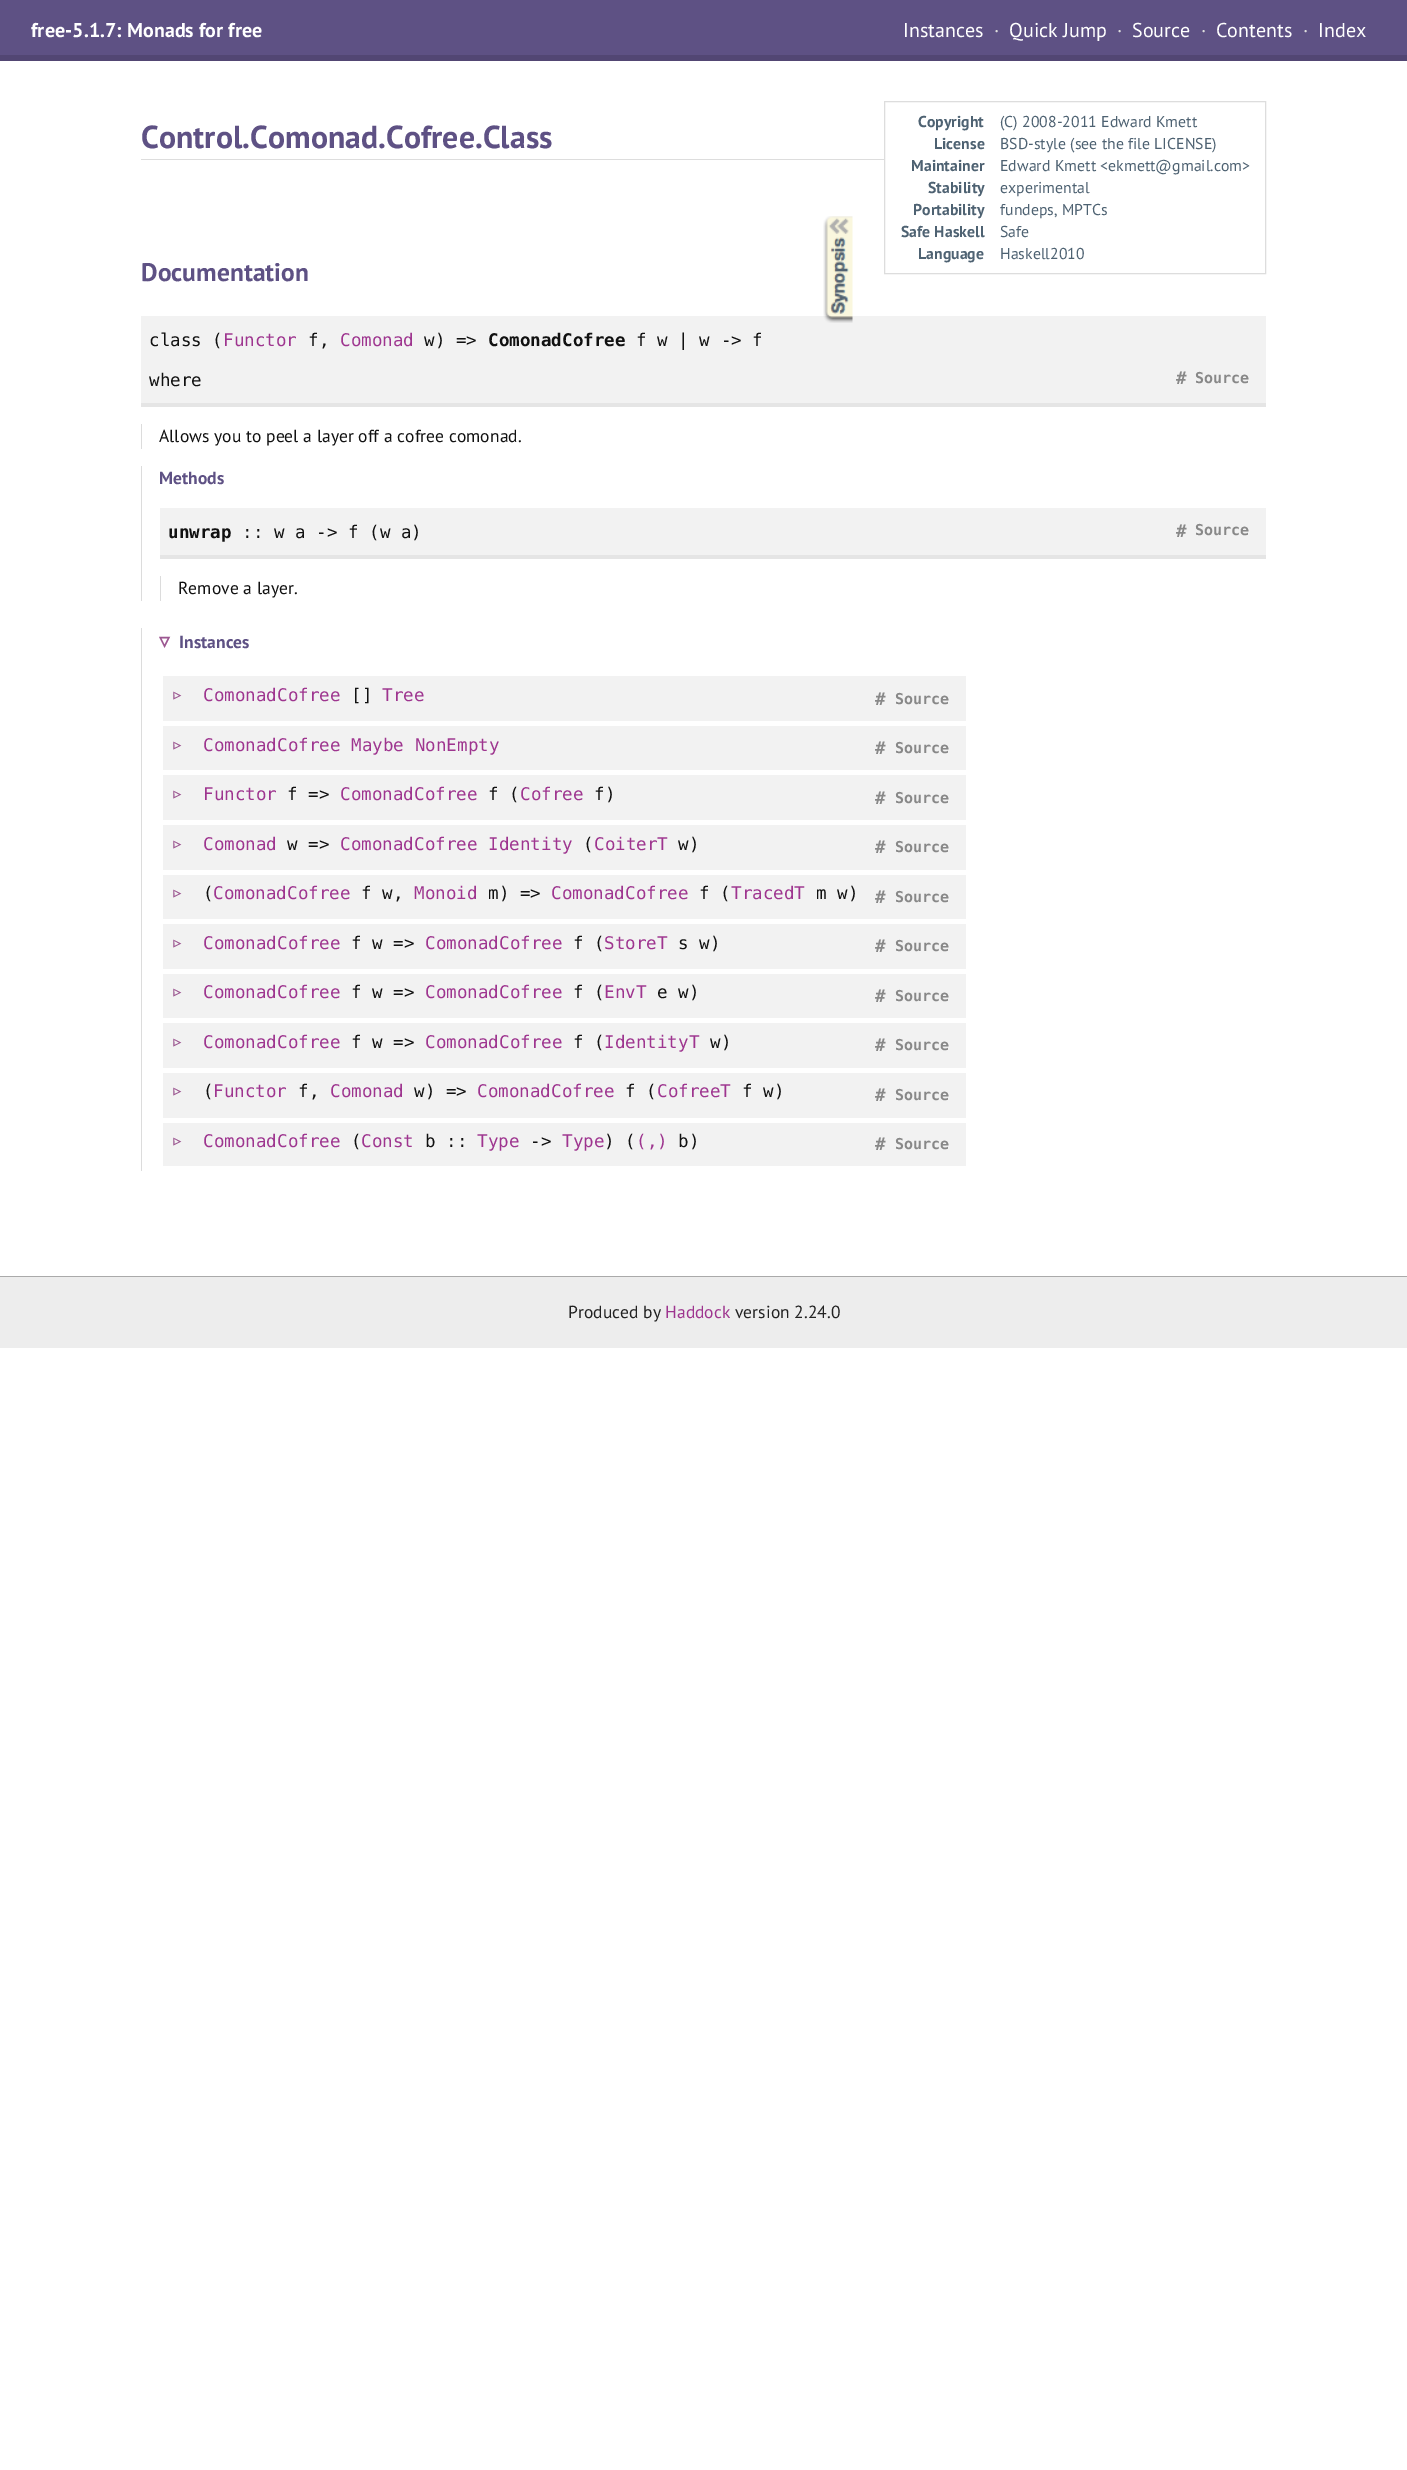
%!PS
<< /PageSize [1407 2470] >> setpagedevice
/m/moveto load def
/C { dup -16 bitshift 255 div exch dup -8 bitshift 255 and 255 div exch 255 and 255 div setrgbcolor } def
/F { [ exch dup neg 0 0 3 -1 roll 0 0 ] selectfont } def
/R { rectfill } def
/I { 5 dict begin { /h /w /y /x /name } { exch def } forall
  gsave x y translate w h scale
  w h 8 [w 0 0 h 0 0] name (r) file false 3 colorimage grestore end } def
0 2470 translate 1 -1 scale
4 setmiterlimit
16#FFFFFF C
0 0 1407 2470 R
16#5E5184 C
0 0 1407 55 R
16#524673 C
0 55 1407 6 R
/PTSans-Bold 20 F
16#FFFFFF C
31 37 m .05 0 (free-5.1.7: Monads for free) ashow
/PTSans-Regular 20 F
903 37 m .05 0 (Instances) ashow
16#DDDDDD C
994 37 m .05 0 (·) ashow
16#FFFFFF C
1009 37 m .05 0 (Quick Jump) ashow
16#DDDDDD C
1117 37 m .05 0 (·) ashow
16#FFFFFF C
1132 37 m .05 0 (Source) ashow
16#DDDDDD C
1201 37 m .05 0 (·) ashow
16#FFFFFF C
1216 37 m .05 0 (Contents) ashow
16#DDDDDD C
1303 37 m .05 0 (·) ashow
16#FFFFFF C
1318 37 m .05 0 (Index) ashow
16#DDDDDD C
141 159 743 1 R
/PTSans-Bold 31.8 F
16#5E5184 C
141 148 m .05 0 (Control.Comonad.Cofree.Class) ashow
16#DDDDDD C
884.5 101.5 381 172 rectstroke
/PTSans-Bold 15.75 F
16#4E6272 C
918 127 m .05 0 (Copyright) ashow
/PTSans-Regular 15.75 F
1000 127 m .05 0 (\(C\) 2008-2011 Edward Kmett) ashow
/PTSans-Bold 15.75 F
934 149 m .05 0 (License) ashow
/PTSans-Regular 15.75 F
1000 149 m .05 0 (BSD-style \(see the file LICENSE\)) ashow
/PTSans-Bold 15.75 F
911 171 m .05 0 (Maintainer) ashow
/PTSans-Regular 15.75 F
1000 171 m .05 0 (Edward Kmett <ekmett@gmail.com>) ashow
/PTSans-Bold 15.75 F
928 193 m .05 0 (Stability) ashow
/PTSans-Regular 15.75 F
1000 193 m .05 0 (experimental) ashow
/PTSans-Bold 15.75 F
913 215 m .05 0 (Portability) ashow
/PTSans-Regular 15.75 F
1000 215 m .05 0 (fundeps, MPTCs) ashow
/PTSans-Bold 15.75 F
901 237 m .05 0 (Safe Haskell) ashow
/PTSans-Regular 15.75 F
1000 237 m .05 0 (Safe) ashow
/PTSans-Bold 15.75 F
918 259 m .05 0 (Language) ashow
/PTSans-Regular 15.75 F
1000 259 m .05 0 (Haskell2010) ashow
16#F2F2F2 C
141 316 1125 87 R
(1.rgb) 823 216 30 107 I
/PTSans-Bold 25.5 F
16#5E5184 C
141 281 m .05 0 (Documentation) ashow
16#E5E5E5 C
141 403 1125 4 R
/DejaVuSansMono-Regular 17.5 F
16#111111 C
149 346 m .05 0 (class \() ashow
16#9E358F C
223 346 m .05 0 (Functor) ashow
16#111111 C
308 346 m .05 0 (f,) ashow
16#9E358F C
340 346 m .05 0 (Comonad) ashow
16#111111 C
424 346 m .05 0 (w\) =>) ashow
/DejaVuSansMono-Bold 17.5 F
488 346 m .05 0 (ComonadCofree) ashow
/DejaVuSansMono-Regular 17.5 F
636 346 m .05 0 (f w | w -> f) ashow
149 386 m .05 0 (where) ashow
/DejaVuSansMono-Bold 17.5 F
16#888888 C
1176 384 m .05 0 (#) ashow
/DejaVuSansMono-Bold 15 F
1195 383 m .05 0 (Source) ashow
16#DCDCDC C
141 424 1 25 R
/PTSans-Regular 17.5 F
16#111111 C
159 442 m .05 0 (Allows you to peel a layer off a cofree comonad.) ashow
16#DCDCDC C
141 466 1 135 R
/PTSans-Bold 17.5 F
16#5E5184 C
159 484 m .05 0 (Methods) ashow
16#F2F2F2 C
160 508 1106 47 R
16#E5E5E5 C
160 555 1106 4 R
/DejaVuSansMono-Bold 17.5 F
16#111111 C
168 538 m .05 0 (unwrap) ashow
/DejaVuSansMono-Regular 17.5 F
242 538 m .05 0 (:: w a -> f \(w a\)) ashow
/DejaVuSansMono-Bold 17.5 F
16#888888 C
1176 537 m .05 0 (#) ashow
/DejaVuSansMono-Bold 15 F
1195 535 m .05 0 (Source) ashow
16#DCDCDC C
160 576 1 25 R
/PTSans-Regular 17.5 F
16#111111 C
178 594 m .05 0 (Remove a layer.) ashow
16#DCDCDC C
141 628 1 543 R
/DejaVuSans-Bold 21 F
16#9C5791 C
159 648 m .05 0 (▿) ashow
/PTSans-Bold 17.5 F
16#5E5184 C
179 648 m .05 0 (Instances) ashow
16#F2F2F2 C
163 676 803 45 R
/DejaVuSansMono-Regular 21 F
16#9C5791 C
171 701 m .05 0 (▹) ashow
/DejaVuSansMono-Regular 17.5 F
16#9E358F C
203 701 m .05 0 (ComonadCofree) ashow
16#111111 C
351 701 m .05 0 ([]) ashow
16#9E358F C
382 701 m .05 0 (Tree) ashow
/DejaVuSansMono-Bold 17.5 F
16#888888 C
875 705 m .05 0 (#) ashow
/DejaVuSansMono-Bold 15 F
895 704 m .05 0 (Source) ashow
16#F2F2F2 C
163 726 803 44 R
/DejaVuSansMono-Regular 21 F
16#9C5791 C
171 751 m .05 0 (▹) ashow
/DejaVuSansMono-Regular 17.5 F
16#9E358F C
203 751 m .05 0 (ComonadCofree Maybe NonEmpty) ashow
/DejaVuSansMono-Bold 17.5 F
16#888888 C
875 754 m .05 0 (#) ashow
/DejaVuSansMono-Bold 15 F
895 753 m .05 0 (Source) ashow
16#F2F2F2 C
163 775 803 45 R
/DejaVuSansMono-Regular 21 F
16#9C5791 C
171 800 m .05 0 (▹) ashow
/DejaVuSansMono-Regular 17.5 F
16#9E358F C
203 800 m .05 0 (Functor) ashow
16#111111 C
287 800 m .05 0 (f =>) ashow
16#9E358F C
340 800 m .05 0 (ComonadCofree) ashow
16#111111 C
488 800 m .05 0 (f \() ashow
16#9E358F C
520 800 m .05 0 (Cofree) ashow
16#111111 C
594 800 m .05 0 (f\)) ashow
/DejaVuSansMono-Bold 17.5 F
16#888888 C
875 804 m .05 0 (#) ashow
/DejaVuSansMono-Bold 15 F
895 803 m .05 0 (Source) ashow
16#F2F2F2 C
163 825 803 45 R
/DejaVuSansMono-Regular 21 F
16#9C5791 C
171 850 m .05 0 (▹) ashow
/DejaVuSansMono-Regular 17.5 F
16#9E358F C
203 850 m .05 0 (Comonad) ashow
16#111111 C
287 850 m .05 0 (w =>) ashow
16#9E358F C
340 850 m .05 0 (ComonadCofree Identity) ashow
16#111111 C
583 850 m .05 0 (\() ashow
16#9E358F C
594 850 m .05 0 (CoiterT) ashow
16#111111 C
678 850 m .05 0 (w\)) ashow
/DejaVuSansMono-Bold 17.5 F
16#888888 C
875 853 m .05 0 (#) ashow
/DejaVuSansMono-Bold 15 F
895 852 m .05 0 (Source) ashow
16#F2F2F2 C
163 875 803 44 R
/DejaVuSansMono-Regular 21 F
16#9C5791 C
171 899 m .05 0 (▹) ashow
/DejaVuSansMono-Regular 17.5 F
16#111111 C
203 899 m .05 0 (\() ashow
16#9E358F C
213 899 m .05 0 (ComonadCofree) ashow
16#111111 C
361 899 m .05 0 (f w,) ashow
16#9E358F C
414 899 m .05 0 (Monoid) ashow
16#111111 C
488 899 m .05 0 (m\) =>) ashow
16#9E358F C
551 899 m .05 0 (ComonadCofree) ashow
16#111111 C
699 899 m .05 0 (f \() ashow
16#9E358F C
731 899 m .05 0 (TracedT) ashow
16#111111 C
816 899 m .05 0 (m w\)) ashow
/DejaVuSansMono-Bold 17.5 F
16#888888 C
875 903 m .05 0 (#) ashow
/DejaVuSansMono-Bold 15 F
895 902 m .05 0 (Source) ashow
16#F2F2F2 C
163 924 803 45 R
/DejaVuSansMono-Regular 21 F
16#9C5791 C
171 949 m .05 0 (▹) ashow
/DejaVuSansMono-Regular 17.5 F
16#9E358F C
203 949 m .05 0 (ComonadCofree) ashow
16#111111 C
351 949 m .05 0 (f w =>) ashow
16#9E358F C
425 949 m .05 0 (ComonadCofree) ashow
16#111111 C
573 949 m .05 0 (f \() ashow
16#9E358F C
604 949 m .05 0 (StoreT) ashow
16#111111 C
678 949 m .05 0 (s w\)) ashow
/DejaVuSansMono-Bold 17.5 F
16#888888 C
875 952 m .05 0 (#) ashow
/DejaVuSansMono-Bold 15 F
895 951 m .05 0 (Source) ashow
16#F2F2F2 C
163 974 803 44 R
/DejaVuSansMono-Regular 21 F
16#9C5791 C
171 998 m .05 0 (▹) ashow
/DejaVuSansMono-Regular 17.5 F
16#9E358F C
203 998 m .05 0 (ComonadCofree) ashow
16#111111 C
351 998 m .05 0 (f w =>) ashow
16#9E358F C
425 998 m .05 0 (ComonadCofree) ashow
16#111111 C
573 998 m .05 0 (f \() ashow
16#9E358F C
604 998 m .05 0 (EnvT) ashow
16#111111 C
657 998 m .05 0 (e w\)) ashow
/DejaVuSansMono-Bold 17.5 F
16#888888 C
875 1002 m .05 0 (#) ashow
/DejaVuSansMono-Bold 15 F
895 1001 m .05 0 (Source) ashow
16#F2F2F2 C
163 1023 803 45 R
/DejaVuSansMono-Regular 21 F
16#9C5791 C
171 1048 m .05 0 (▹) ashow
/DejaVuSansMono-Regular 17.5 F
16#9E358F C
203 1048 m .05 0 (ComonadCofree) ashow
16#111111 C
351 1048 m .05 0 (f w =>) ashow
16#9E358F C
425 1048 m .05 0 (ComonadCofree) ashow
16#111111 C
573 1048 m .05 0 (f \() ashow
16#9E358F C
604 1048 m .05 0 (IdentityT) ashow
16#111111 C
710 1048 m .05 0 (w\)) ashow
/DejaVuSansMono-Bold 17.5 F
16#888888 C
875 1051 m .05 0 (#) ashow
/DejaVuSansMono-Bold 15 F
895 1050 m .05 0 (Source) ashow
16#F2F2F2 C
163 1073 803 45 R
/DejaVuSansMono-Regular 21 F
16#9C5791 C
171 1097 m .05 0 (▹) ashow
/DejaVuSansMono-Regular 17.5 F
16#111111 C
203 1097 m .05 0 (\() ashow
16#9E358F C
213 1097 m .05 0 (Functor) ashow
16#111111 C
298 1097 m .05 0 (f,) ashow
16#9E358F C
330 1097 m .05 0 (Comonad) ashow
16#111111 C
414 1097 m .05 0 (w\) =>) ashow
16#9E358F C
477 1097 m .05 0 (ComonadCofree) ashow
16#111111 C
625 1097 m .05 0 (f \() ashow
16#9E358F C
657 1097 m .05 0 (CofreeT) ashow
16#111111 C
742 1097 m .05 0 (f w\)) ashow
/DejaVuSansMono-Bold 17.5 F
16#888888 C
875 1101 m .05 0 (#) ashow
/DejaVuSansMono-Bold 15 F
895 1100 m .05 0 (Source) ashow
16#F2F2F2 C
163 1123 803 43 R
/DejaVuSansMono-Regular 21 F
16#9C5791 C
171 1147 m .05 0 (▹) ashow
/DejaVuSansMono-Regular 17.5 F
16#9E358F C
203 1147 m .05 0 (ComonadCofree) ashow
16#111111 C
351 1147 m .05 0 (\() ashow
16#9E358F C
361 1147 m .05 0 (Const) ashow
16#111111 C
425 1147 m .05 0 (b ::) ashow
16#9E358F C
477 1147 m .05 0 (Type) ashow
16#111111 C
530 1147 m .05 0 (->) ashow
16#9E358F C
562 1147 m .05 0 (Type) ashow
16#111111 C
604 1147 m .05 0 (\) \() ashow
16#9E358F C
636 1147 m .05 0 (\(,\)) ashow
16#111111 C
678 1147 m .05 0 (b\)) ashow
/DejaVuSansMono-Bold 17.5 F
16#888888 C
875 1150 m .05 0 (#) ashow
/DejaVuSansMono-Bold 15 F
895 1149 m .05 0 (Source) ashow
16#EDEDED C
0 1277 1407 71 R
16#AAAAAA C
0 1276 1407 1 R
/PTSans-Regular 17.5 F
16#222222 C
568 1318 m .05 0 (Produced by) ashow
16#9E358F C
665 1318 m .05 0 (Haddock) ashow
16#222222 C
735 1318 m .05 0 (version 2.24.0) ashow
showpage
